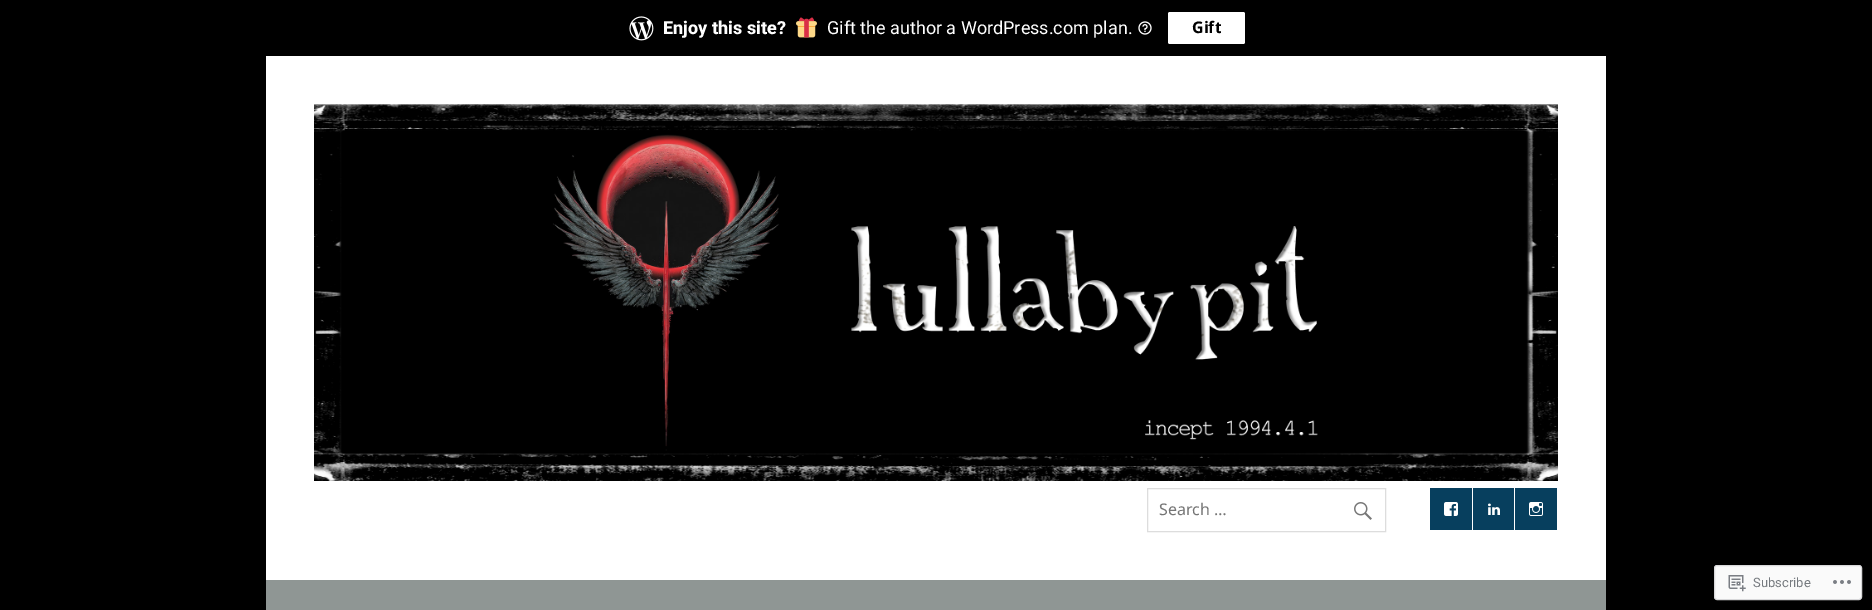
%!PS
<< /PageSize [1872 610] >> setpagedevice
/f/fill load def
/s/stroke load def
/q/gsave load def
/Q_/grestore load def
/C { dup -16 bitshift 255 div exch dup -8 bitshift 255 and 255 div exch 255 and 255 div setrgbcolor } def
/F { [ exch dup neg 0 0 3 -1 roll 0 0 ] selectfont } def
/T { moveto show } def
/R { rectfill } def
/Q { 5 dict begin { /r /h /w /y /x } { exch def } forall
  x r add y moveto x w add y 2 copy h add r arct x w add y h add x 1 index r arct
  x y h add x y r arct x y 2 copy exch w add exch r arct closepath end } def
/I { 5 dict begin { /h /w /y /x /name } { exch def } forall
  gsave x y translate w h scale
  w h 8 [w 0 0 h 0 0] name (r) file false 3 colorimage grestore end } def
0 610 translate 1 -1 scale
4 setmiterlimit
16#000000 C
0 0 1872 610 R
(1.rgb) 629 16 25 25 I
/Roboto-ExtraBold 18 F
16#FFFFFF C
(Enjoy this site?) 663 34 T
(2.rgb) 796 17 21 21 I
/Roboto-Regular 18 F
(Gift the author a WordPress.com plan.) 827 34 T
(3.rgb) 1138 21 14 14 I
1168 12 77 32 2 Q f
/DroidSans-Bold 16 F
16#000000 C
(Gift) 1192 33 T
16#FFFFFF C
266 56 1340 524 R
(4.rgb) 314 104 1244 377 I
16#DDDDDD C
1147.5 488.5 238 43 rectstroke
/NotoSans-Regular 16 F
16#757575 C
(Search …) 1159 515 T
(5.rgb) 1354 502 18 18 I
16#073F5E C
1430 488 42 42 R
(6.rgb) 1444 502 14 14 I
1473 488 41 42 R
(7.rgb) 1488 503 12 12 I
1515 488 42 42 R
(8.rgb) 1529 502 14 14 I
16#8F9694 C
266 580 1340 30 R
16#FAFAFA C
1714.5 565.5 147 34 2.5 Q q f Q_
16#D8D8DA C
s
(9.rgb) 1728 575 18 17 I
/Roboto-Regular 13 F
16#767A7F C
(Subscribe) 1753 587 T
(10.rgb) 1833 580 18 4 I
showpage
